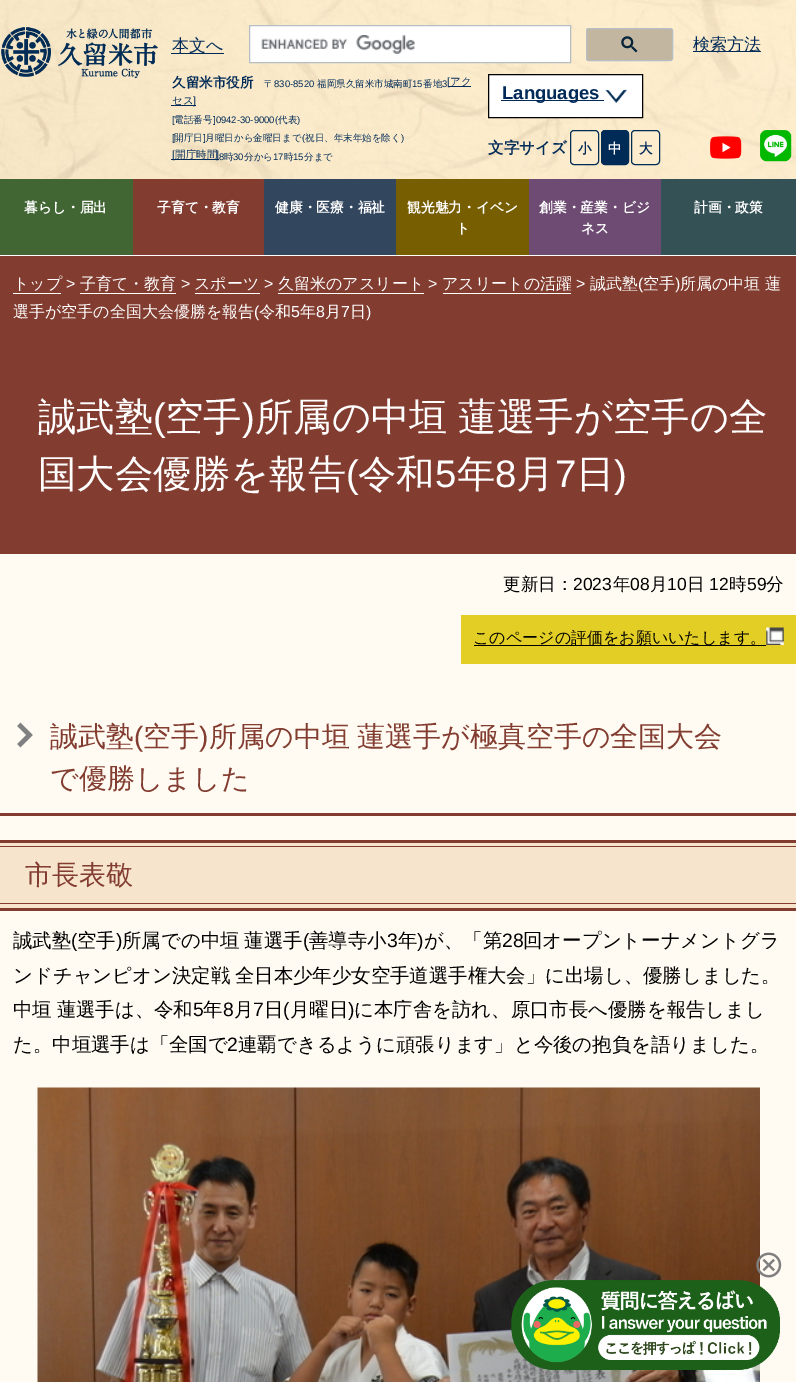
%!PS
<< /PageSize [796 1382] /PageUsesTransparency true >> setpagedevice
/m/moveto load def
/l/rlineto load def
/z/closepath load def
/f/fill load def
/s/stroke load def
/q/gsave load def
/Q_/grestore load def
/C { dup -16 bitshift 255 div exch dup -8 bitshift 255 and 255 div exch 255 and 255 div setrgbcolor } def
/F { [ exch dup neg 0 0 3 -1 roll 0 0 ] selectfont } def
/T { moveto show } def
/R { rectfill } def
/A { dup .setfillconstantalpha .setstrokeconstantalpha } def
/Q { 5 dict begin { /r /h /w /y /x } { exch def } forall
  x r add y moveto x w add y 2 copy h add r arct x w add y h add x 1 index r arct
  x y h add x y r arct x y 2 copy exch w add exch r arct closepath end } def
/I { 5 dict begin { /h /w /y /x /name } { exch def } forall
  gsave x y translate w h scale
  w h 8 [w 0 0 h 0 0] name (r) file false 3 colorimage grestore end } def
0 .pushpdf14devicefilter
0 1382 translate 1 -1 scale
4 setmiterlimit
16#FFFBF2 C
0 0 796 1382 R
(1.rgb) 0 0 796 179 I
(2.rgb) 1 27 157 52 I
16#002A57 C
171 53 53 1 R
/WenQuanYiZenHei-Medium 17 F
(本文へ) 172 51 T
16#FFFFFF C
249.5 25.5 m 321 0 l 0 37 l -321 0 l z q f Q_
16#B6BEC5 C
s
(3.rgb) 261 35 154 19 I
16#C3B6A1 C
586.5 28.5 86 32 2 Q q f Q_
16#B6BEC5 C
s
(4.rgb) 621 36 17 17 I
16#002A57 C
693 51 68 1 R
(検索方法) 693 50 T
/WenQuanYiZenHei-Bold 13.5 F
(久留米市役所) 172 87 T
/WenQuanYiZenHei-Medium 9.5 F
(〒) 264 87 T
/LiberationSans-Regular 9.5 F
(830-8520) 274 87 T
/WenQuanYiZenHei-Medium 9.5 F
(福岡県久留米市城南町) 317 87 T
/LiberationSans-Regular 9.5 F
(15) 412 87 T
/WenQuanYiZenHei-Medium 9.5 F
(番地) 423 87 T
/LiberationSans-Regular 9.5 F
(3) 442 87 T
448 86 23 1 R
/LiberationSans-Regular 10.5 F
([) 447 85 T
/WenQuanYiZenHei-Medium 10.5 F
(アク) 450 85 T
(セス) 172 104 T
171 105 25 1 R
/LiberationSans-Regular 10.5 F
(]) 193 104 T
/LiberationSans-Regular 9.5 F
([) 172 123 T
/WenQuanYiZenHei-Medium 9.5 F
(電話番号) 174 123 T
/LiberationSans-Regular 9.5 F
(]0942-30-9000\() 213 123 T
/WenQuanYiZenHei-Medium 9.5 F
(代表) 278 123 T
/LiberationSans-Regular 9.5 F
(\)) 297 123 T
([) 172 141 T
/WenQuanYiZenHei-Medium 9.5 F
(開庁日 月曜日から金曜日まで) 174 141 T
/LiberationSans-Regular 9.5 F
(\() 302 141 T
/WenQuanYiZenHei-Medium 9.5 F
(祝日、年末年始を除く) 305 141 T
/LiberationSans-Regular 9.5 F
(]) 203 141 T
(\)) 401 141 T
171 159 48 1 R
/LiberationSans-Regular 10.5 F
([) 172 158 T
/WenQuanYiZenHei-Medium 10.5 F
(開庁時間) 175 158 T
/LiberationSans-Regular 10.5 F
(]) 216 158 T
/LiberationSans-Regular 9.5 F
(8) 219 160 T
/WenQuanYiZenHei-Medium 9.5 F
(時) 224 160 T
/LiberationSans-Regular 9.5 F
(30) 233 160 T
/WenQuanYiZenHei-Medium 9.5 F
(分から) 244 160 T
/LiberationSans-Regular 9.5 F
(17) 273 160 T
/WenQuanYiZenHei-Medium 9.5 F
(時) 284 160 T
/LiberationSans-Regular 9.5 F
(15) 293 160 T
/WenQuanYiZenHei-Medium 9.5 F
(分まで) 304 160 T
16#FFFFFF C
488.5 74.5 m 154 0 l 0 43 l -154 0 l z q f Q_
16#000000 C
s
16#002A57 C
501 100 103 1 R
/LiberationSans-Bold 18.5 F
(Languages) 502 99 T
(5.rgb) 605 89 22 14 I
/WenQuanYiZenHei-Bold 15.5 F
(文字サイズ) 488 153 T
0.9 A
16#FDECCE C
570.5 130.5 28 34 3.5 Q f
1 A
16#002C56 C
570.5 130.5 28 34 3.5 Q s
/WenQuanYiZenHei-Bold 13.5 F
16#002A57 C
(小) 578 153 T
16#002B57 C
601.5 130.5 27 34 3.5 Q q f Q_
16#002C56 C
s
16#FFFFFF C
(中) 608 153 T
0.9 A
16#FDECCE C
631.5 130.5 28 34 3.5 Q f
1 A
16#002C56 C
631.5 130.5 28 34 3.5 Q s
16#002A57 C
(大) 639 153 T
(6.rgb) 710 136 32 23 I
(7.rgb) 760 130 32 32 I
16#416633 C
0 179 133 76 R
16#FFFFFF C
0 255 796 1 R
/WenQuanYiZenHei-Bold 13.75 F
(暮らし・届出) 24 212 T
16#823C30 C
133 179 131 76 R
16#FFFFFF C
(子育て・教育) 157 212 T
16#32465E C
264 179 132 76 R
16#FFFFFF C
(健康・医療・福祉) 275 212 T
16#775E01 C
396 179 133 76 R
16#FFFFFF C
(観光魅力・イベン) 407 212 T
(ト) 456 233 T
16#6E4B73 C
529 179 132 76 R
16#FFFFFF C
(創業・産業・ビジ) 539 212 T
(ネス) 581 233 T
16#345155 C
661 179 135 76 R
16#FFFFFF C
(計画・政策) 694 212 T
16#823C30 C
0 256 796 298 R
/WenQuanYiZenHei-Medium 16 F
16#FFFFFF C
(トップ) 13 289 T
13 293 48 1 R
/LiberationSans-Regular 16 F
(>) 66 289 T
/WenQuanYiZenHei-Medium 16 F
(子育て・教育) 80 289 T
80 293 96 1 R
/LiberationSans-Regular 16 F
(>) 181 289 T
/WenQuanYiZenHei-Medium 16 F
(スポーツ) 194 289 T
195 293 65 1 R
/LiberationSans-Regular 16 F
(>) 264 289 T
/WenQuanYiZenHei-Medium 16 F
(久留米のアスリート) 278 289 T
278 293 146 1 R
/LiberationSans-Regular 16 F
(>) 428 289 T
/WenQuanYiZenHei-Medium 16 F
(アスリートの活躍) 442 289 T
443 293 128 1 R
/LiberationSans-Regular 16 F
(>) 576 289 T
/WenQuanYiZenHei-Medium 16 F
(誠武塾) 590 289 T
/LiberationSans-Regular 16 F
(\() 638 289 T
/WenQuanYiZenHei-Medium 16 F
(空手) 643 289 T
/LiberationSans-Regular 16 F
(\)) 675 289 T
/WenQuanYiZenHei-Medium 16 F
(所属の中垣 蓮) 680 289 T
(選手が空手の全国大会優勝を報告) 13 317 T
/LiberationSans-Regular 16 F
(\() 254 317 T
/WenQuanYiZenHei-Medium 16 F
(令和) 259 317 T
/LiberationSans-Regular 16 F
(5) 291 317 T
/WenQuanYiZenHei-Medium 16 F
(年) 300 317 T
/LiberationSans-Regular 16 F
(8) 316 317 T
/WenQuanYiZenHei-Medium 16 F
(月) 325 317 T
/LiberationSans-Regular 16 F
(7) 341 317 T
/WenQuanYiZenHei-Medium 16 F
(日) 350 317 T
/LiberationSans-Regular 16 F
(\)) 366 317 T
/WenQuanYiZenHei-Medium 38.4 F
(誠武塾) 38 430 T
/LiberationSans-Regular 38.4 F
(\() 153 430 T
/WenQuanYiZenHei-Medium 38.4 F
(空手) 165 430 T
/LiberationSans-Regular 38.4 F
(\)) 242 430 T
/WenQuanYiZenHei-Medium 38.4 F
255 430 m -1 0 32 (所属の中垣 蓮選手が空手の全) widthshow
(国大会優勝を報告) 38 487 T
/LiberationSans-Regular 38.4 F
(\() 346 487 T
/WenQuanYiZenHei-Medium 38.4 F
(令和) 358 487 T
/LiberationSans-Regular 38.4 F
(5) 435 487 T
/WenQuanYiZenHei-Medium 38.4 F
(年) 457 487 T
/LiberationSans-Regular 38.4 F
(8) 495 487 T
/WenQuanYiZenHei-Medium 38.4 F
(月) 516 487 T
/LiberationSans-Regular 38.4 F
(7) 555 487 T
/WenQuanYiZenHei-Medium 38.4 F
(日) 576 487 T
/LiberationSans-Regular 38.4 F
(\)) 614 487 T
/WenQuanYiZenHei-Medium 17.5 F
16#000000 C
(更新日：) 503 590 T
/LiberationSans-Regular 17.5 F
(2023) 573 590 T
/WenQuanYiZenHei-Medium 17.5 F
(年) 613 590 T
/LiberationSans-Regular 17.5 F
(08) 630 590 T
/WenQuanYiZenHei-Medium 17.5 F
(月) 650 590 T
/LiberationSans-Regular 17.5 F
(10) 667 590 T
/WenQuanYiZenHei-Medium 17.5 F
(日) 687 590 T
/LiberationSans-Regular 17.5 F
(12) 709 590 T
/WenQuanYiZenHei-Medium 17.5 F
(時) 729 590 T
/LiberationSans-Regular 17.5 F
(59) 747 590 T
/WenQuanYiZenHei-Medium 17.5 F
(分) 766 590 T
16#E3CE25 C
461 615 335 49 R
16#000000 C
474 645 292 1 R
/WenQuanYiZenHei-Medium 16 F
(このページの評価をお願いいたします。) 473 643 T
(8.rgb) 766 627 18 18 I
(9.rgb) 17 722 16 26 I
16#823C30 C
0 813 796 3 R
/WenQuanYiZenHei-Medium 28 F
(誠武塾) 50 746 T
/LiberationSans-Regular 28 F
(\() 134 746 T
/WenQuanYiZenHei-Medium 28 F
(空手) 143 746 T
/LiberationSans-Regular 28 F
(\)) 199 746 T
/WenQuanYiZenHei-Medium 28 F
209 746 m -1 0 32 (所属の中垣 蓮選手が極真空手の全国大会) widthshow
(で優勝しました) 50 788 T
16#F6E5CC C
0 843 796 65 R
16#823C30 C
0 840 796 3 R
0 846 796 1 R
/WenQuanYiZenHei-Medium 27 F
(市長表敬) 25 884 T
0 903 796 1 R
0 908 796 3 R
/WenQuanYiZenHei-Medium 19.4 F
16#000000 C
(誠武塾) 13 947 T
/LiberationSans-Regular 19.4 F
(\() 71 947 T
/WenQuanYiZenHei-Medium 19.4 F
(空手) 77 947 T
/LiberationSans-Regular 19.4 F
(\)) 116 947 T
/WenQuanYiZenHei-Medium 19.4 F
122 947 m -1 0 32 (所属での中垣 蓮選手) widthshow
/LiberationSans-Regular 19.4 F
(\() 303 947 T
/WenQuanYiZenHei-Medium 19.4 F
(善導寺小) 309 947 T
/LiberationSans-Regular 19.4 F
(3) 387 947 T
/WenQuanYiZenHei-Medium 19.4 F
(年) 398 947 T
/LiberationSans-Regular 19.4 F
(\)) 417 947 T
/WenQuanYiZenHei-Medium 19.4 F
(が、「第) 424 947 T
/LiberationSans-Regular 19.4 F
(28) 502 947 T
/WenQuanYiZenHei-Medium 19.4 F
(回オープントーナメントグラ) 523 947 T
13 982 m -1 0 32 (ンドチャンピオン決定戦 全日本少年少女空手道選手権大会」に出場し、優勝しました。) widthshow
13 1016 m -1 0 32 (中垣 蓮選手は、令和) widthshow
/LiberationSans-Regular 19.4 F
(5) 193 1016 T
/WenQuanYiZenHei-Medium 19.4 F
(年) 203 1016 T
/LiberationSans-Regular 19.4 F
(8) 223 1016 T
/WenQuanYiZenHei-Medium 19.4 F
(月) 234 1016 T
/LiberationSans-Regular 19.4 F
(7) 253 1016 T
/WenQuanYiZenHei-Medium 19.4 F
(日) 264 1016 T
/LiberationSans-Regular 19.4 F
(\() 283 1016 T
/WenQuanYiZenHei-Medium 19.4 F
(月曜日) 290 1016 T
/LiberationSans-Regular 19.4 F
(\)) 348 1016 T
/WenQuanYiZenHei-Medium 19.4 F
(に本庁舎を訪れ、原口市長へ優勝を報告しまし) 354 1016 T
(た。中垣選手は「全国で) 13 1051 T
/LiberationSans-Regular 19.4 F
(2) 227 1051 T
/WenQuanYiZenHei-Medium 19.4 F
(連覇できるように頑張ります」と今後の抱負を語りました。) 238 1051 T
(10.rgb) 37 1087 723 295 I
(11.rgb) 756 1252 26 26 I
(12.rgb) 511 1280 269 90 I
.poppdf14devicefilter showpage
